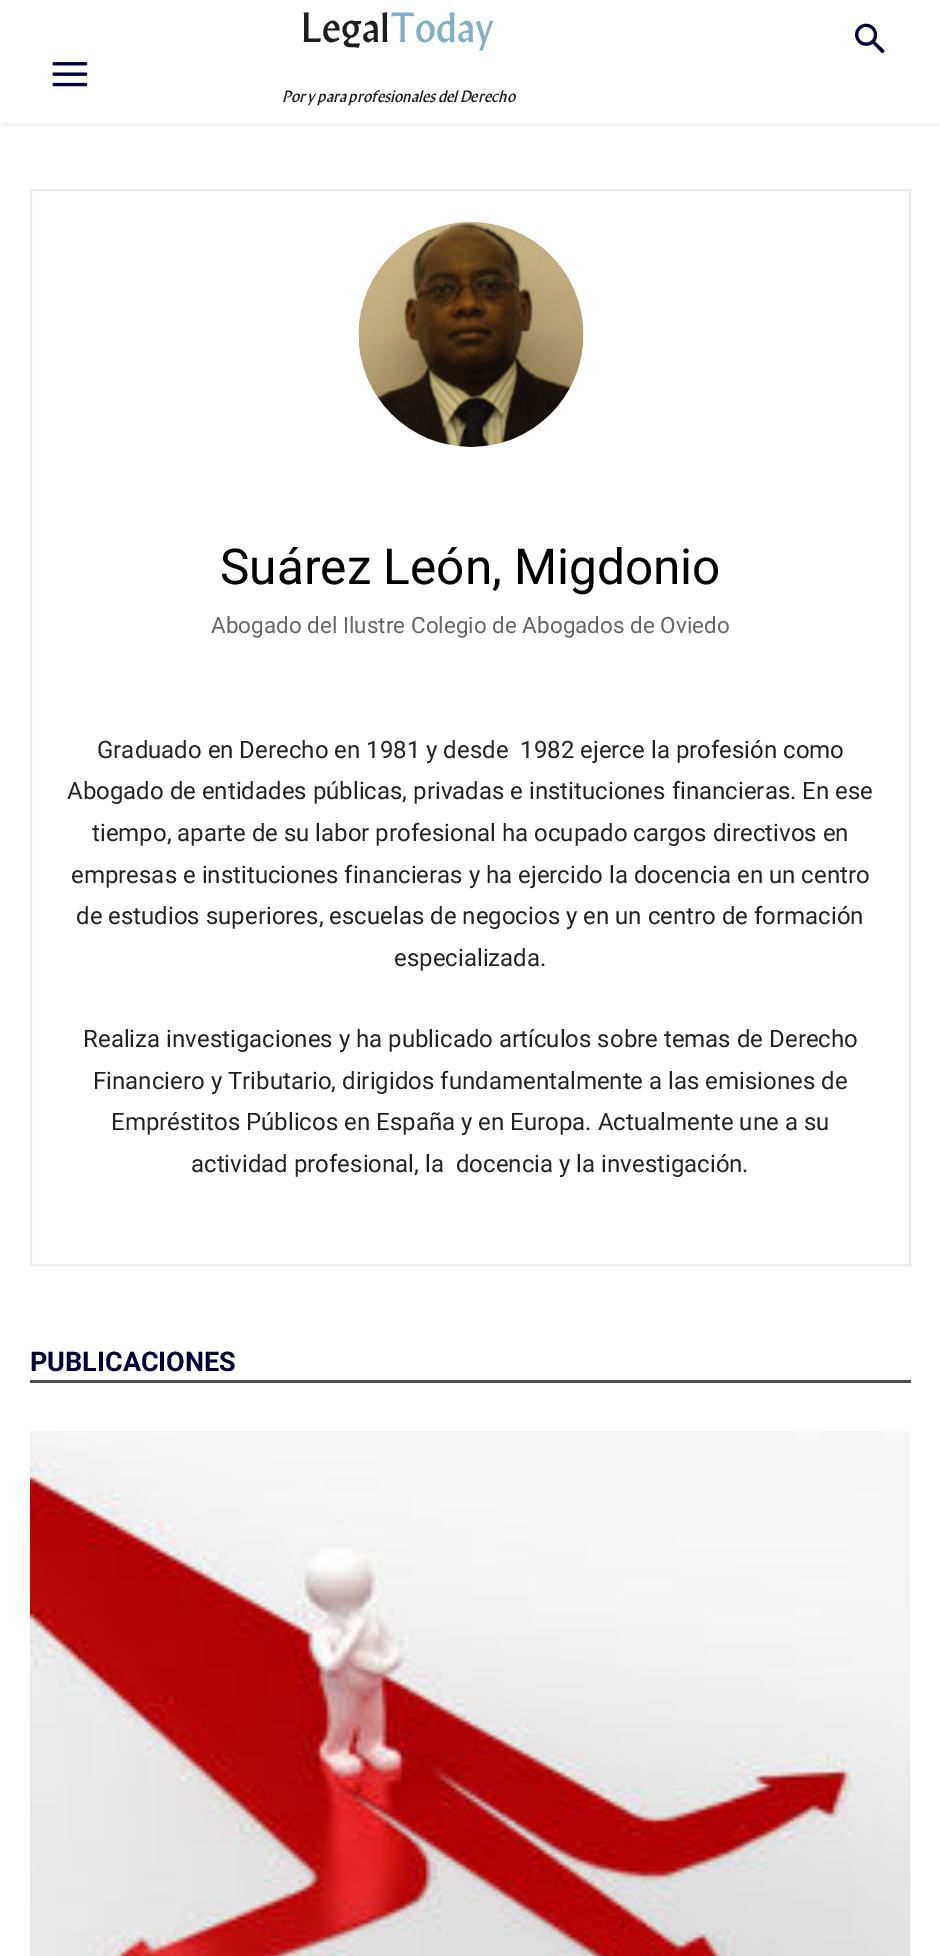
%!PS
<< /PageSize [940 1956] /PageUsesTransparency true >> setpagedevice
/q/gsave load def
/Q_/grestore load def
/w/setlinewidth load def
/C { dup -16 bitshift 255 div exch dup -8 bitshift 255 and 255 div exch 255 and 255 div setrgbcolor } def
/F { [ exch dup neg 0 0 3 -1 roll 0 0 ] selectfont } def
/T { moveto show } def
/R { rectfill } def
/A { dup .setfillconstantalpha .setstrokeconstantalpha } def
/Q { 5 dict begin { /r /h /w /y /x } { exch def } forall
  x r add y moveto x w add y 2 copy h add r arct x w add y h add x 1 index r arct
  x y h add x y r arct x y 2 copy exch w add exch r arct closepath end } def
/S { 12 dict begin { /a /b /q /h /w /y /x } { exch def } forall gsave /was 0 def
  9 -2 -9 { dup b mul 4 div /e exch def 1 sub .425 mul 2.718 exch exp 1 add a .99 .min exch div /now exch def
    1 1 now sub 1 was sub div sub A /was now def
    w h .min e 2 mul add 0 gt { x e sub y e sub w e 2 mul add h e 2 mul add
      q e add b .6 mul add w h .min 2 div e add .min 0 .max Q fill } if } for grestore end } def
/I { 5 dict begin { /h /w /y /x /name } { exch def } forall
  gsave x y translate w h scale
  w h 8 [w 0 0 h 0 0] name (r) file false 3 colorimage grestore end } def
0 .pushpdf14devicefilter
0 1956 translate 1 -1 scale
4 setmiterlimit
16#FFFFFF C
0 0 940 1956 R
(1.rgb) 855 23 30 30 I
(2.rgb) 52 62 36 25 I
q
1 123 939 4 rectclip
16#000000 C
2 3 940 123 0 3 .06 S
Q_
/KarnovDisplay-Regular 42 F
16#1D1D1B C
(Legal) 301 42 T
16#81AFC8 C
(Today) 390 42 T
/KarnovDisplay-Italic 16.5 F
16#1D1D1B C
(Por y para profesionales del Derecho) 282 102 T
16#EDEDED C
2 w
31 190 879 1075 rectstroke
(3.rgb) 358 222 226 225 I
/Roboto-Regular 49.5 F
16#000000 C
(Suárez León, Migdonio) 220 584 T
/Roboto-Regular 22.5 F
16#666666 C
(Abogado del Ilustre Colegio de Abogados de Oviedo) 211 633 T
/Roboto-Regular 24 F
16#222222 C
(Graduado en Derecho en 1981 y desde  1982 ejerce la profesión como) 97 758 T
(Abogado de entidades públicas, privadas e instituciones financieras. En ese) 67 799 T
(tiempo, aparte de su labor profesional ha ocupado cargos directivos en) 92 841 T
(empresas e instituciones financieras y ha ejercido la docencia en un centro) 71 883 T
(de estudios superiores, escuelas de negocios y en un centro de formación) 76 924 T
(especializada.) 394 966 T
(Realiza investigaciones y ha publicado artículos sobre temas de Derecho) 83 1047 T
(Financiero y Tributario, dirigidos fundamentalmente a las emisiones de) 93 1089 T
(Empréstitos Públicos en España y en Europa. Actualmente une a su) 111 1130 T
(actividad profesional, la  docencia y la investigación.) 191 1172 T
16#4D4D4D C
30 1380 881 3 R
/Roboto-Bold 27 F
16#00003C C
(PUBLICACIONES) 30 1371 T
(4.rgb) 30 1431 881 525 I
.poppdf14devicefilter showpage
